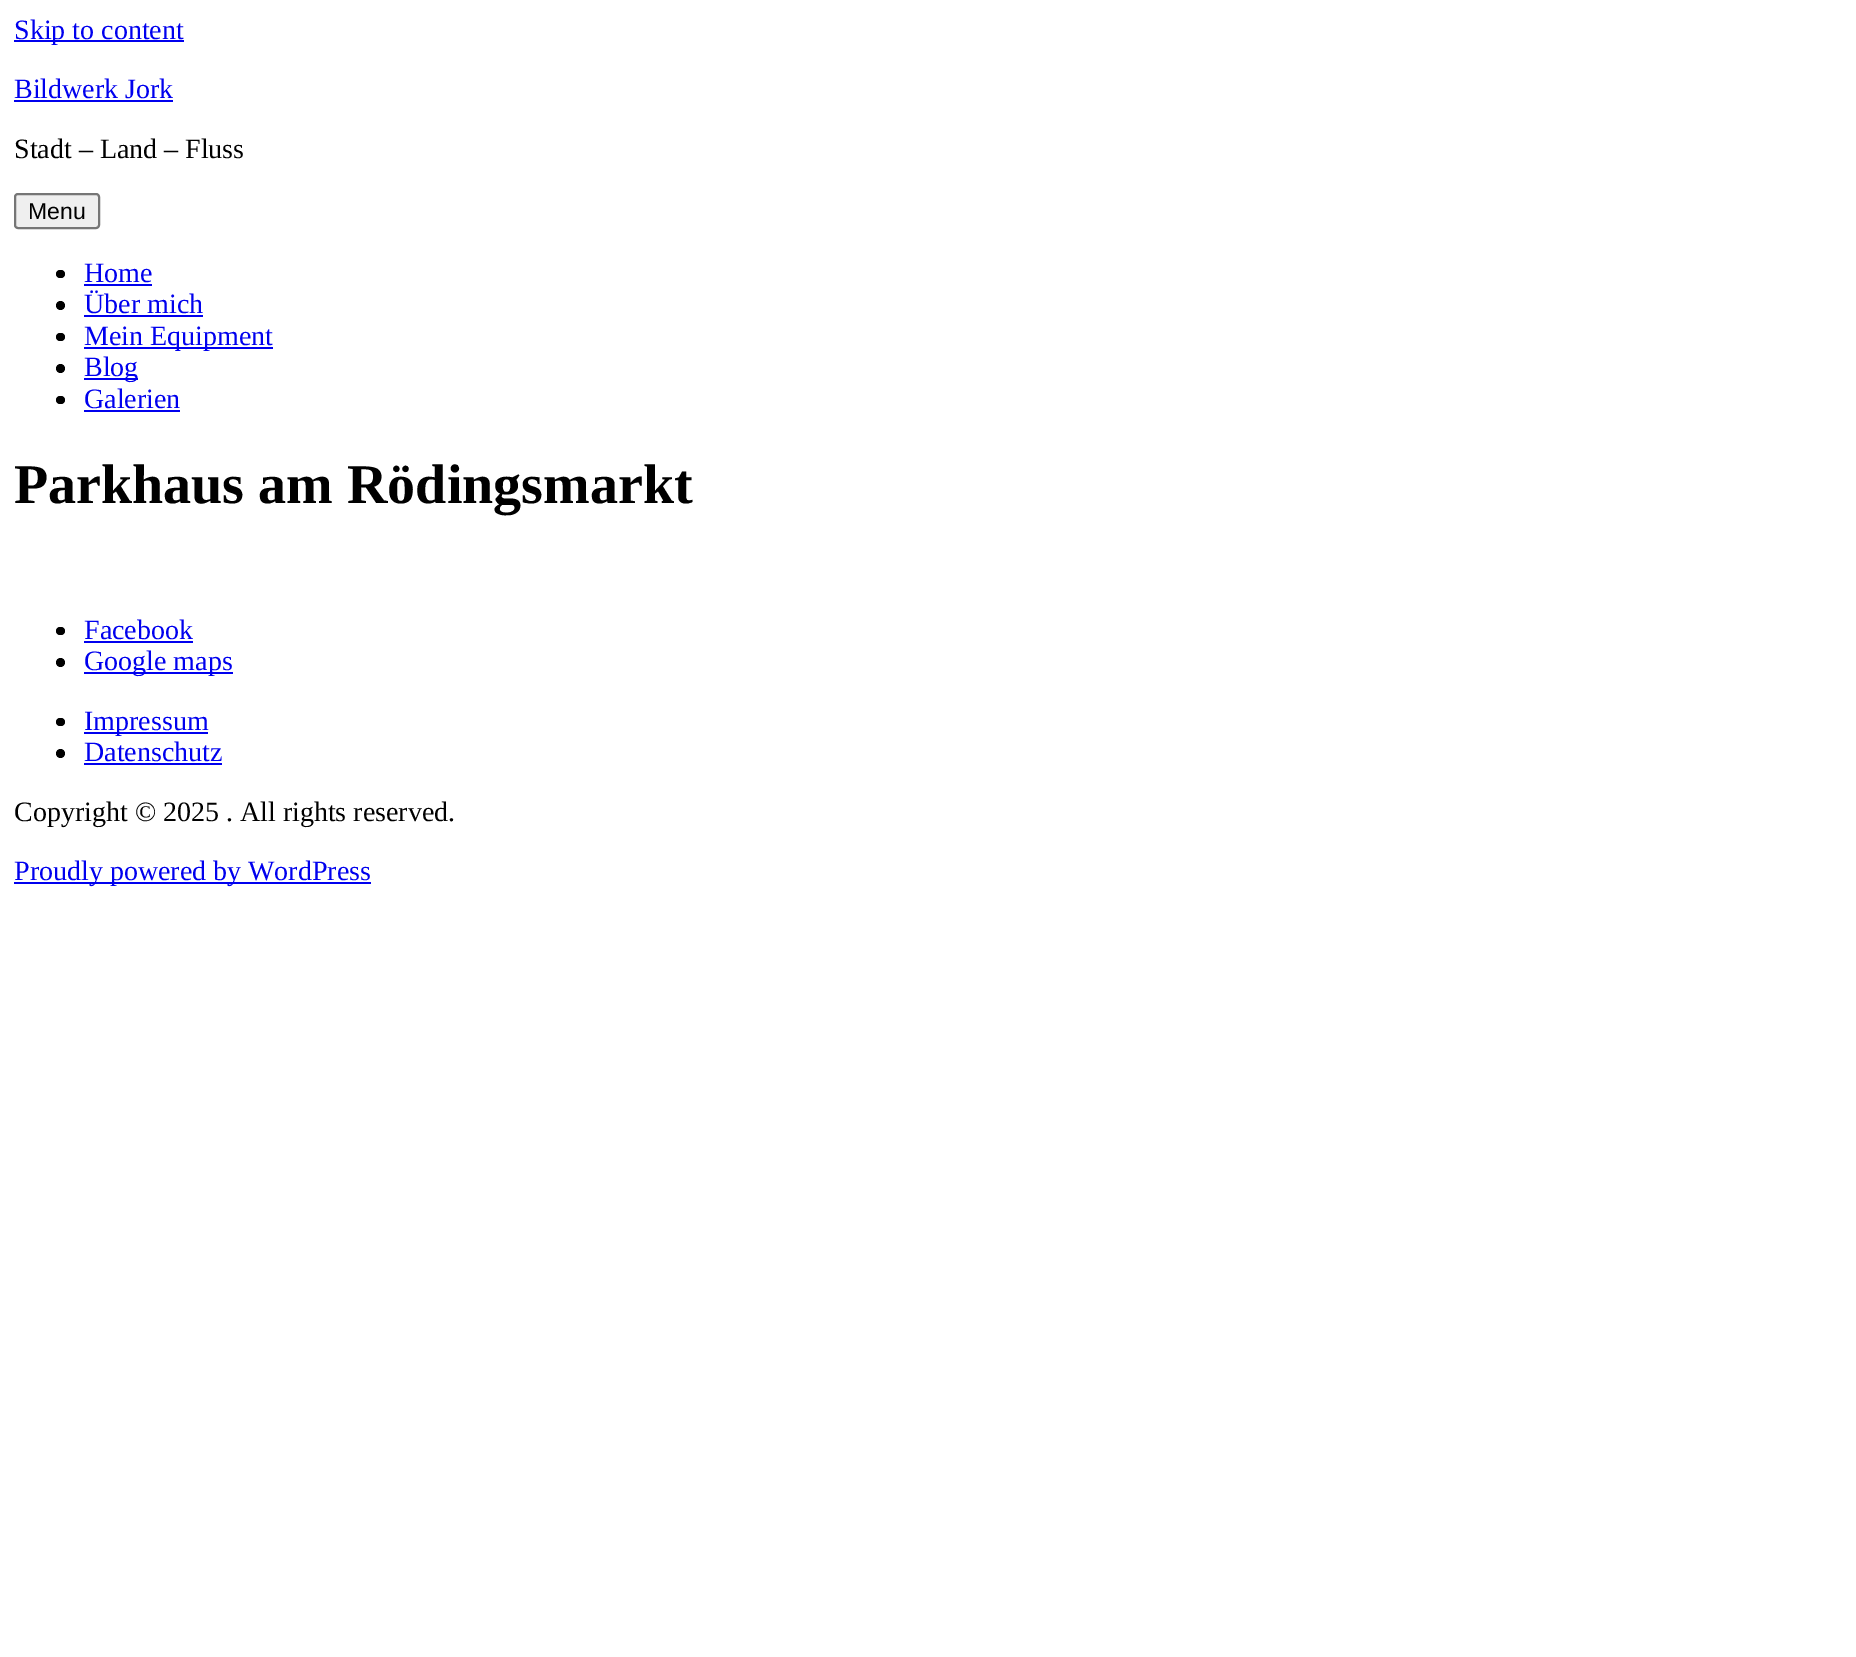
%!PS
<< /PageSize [1856 1657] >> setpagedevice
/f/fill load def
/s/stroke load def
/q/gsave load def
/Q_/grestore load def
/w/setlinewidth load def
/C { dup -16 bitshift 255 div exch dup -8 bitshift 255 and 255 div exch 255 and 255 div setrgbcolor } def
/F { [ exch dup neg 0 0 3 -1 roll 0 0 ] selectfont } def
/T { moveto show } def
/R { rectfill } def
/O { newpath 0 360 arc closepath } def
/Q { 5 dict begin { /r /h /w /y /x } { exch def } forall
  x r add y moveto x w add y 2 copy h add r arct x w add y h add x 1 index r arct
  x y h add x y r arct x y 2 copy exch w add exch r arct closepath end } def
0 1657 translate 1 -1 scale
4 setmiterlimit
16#FFFFFF C
0 0 1856 1657 R
16#0000EE C
14 40 170 2 R
/LiberationSerif-Regular 28 F
(Skip to content) 14 39 T
(Bildwerk Jork) 14 98 T
14 100 159 2 R
16#000000 C
(Stadt – Land – Fluss) 14 158 T
16#EFEFEF C
15 194 84 34 3 Q q f Q_
16#767676 C
2 w
s
/LiberationSans-Regular 23 F
16#000000 C
(Menu) 28 219 T
56 270 9 8 4 Q f
/LiberationSerif-Regular 28 F
16#0000EE C
(Home) 84 282 T
84 284 68 2 R
16#000000 C
60.5 305.5 4.5 O f
16#0000EE C
(Über mich) 84 313 T
84 315 119 2 R
16#000000 C
56 333 9 8 4 Q f
16#0000EE C
84 347 189 2 R
(Mein Equipment) 84 345 T
16#000000 C
60.5 368.5 4.5 O f
16#0000EE C
84 378 54 2 R
(Blog) 84 376 T
16#000000 C
56 396 9 8 4 Q f
16#0000EE C
(Galerien) 84 408 T
84 410 96 2 R
/LiberationSerif-Bold 56 F
16#000000 C
(Parkhaus am Rödingsmarkt) 14 503 T
56 627 9 8 4 Q f
/LiberationSerif-Regular 28 F
16#0000EE C
(Facebook) 84 639 T
84 641 109 2 R
16#000000 C
60.5 662.5 4.5 O f
16#0000EE C
84 672 149 2 R
(Google maps) 84 670 T
16#000000 C
56 718 9 8 4 Q f
16#0000EE C
84 732 124 2 R
(Impressum) 84 730 T
16#000000 C
60.5 753.5 4.5 O f
16#0000EE C
(Datenschutz) 84 761 T
84 763 138 2 R
16#000000 C
(Copyright © 2025 . All rights reserved.) 14 821 T
16#0000EE C
14 882 357 2 R
(Proudly powered by WordPress) 14 880 T
showpage
